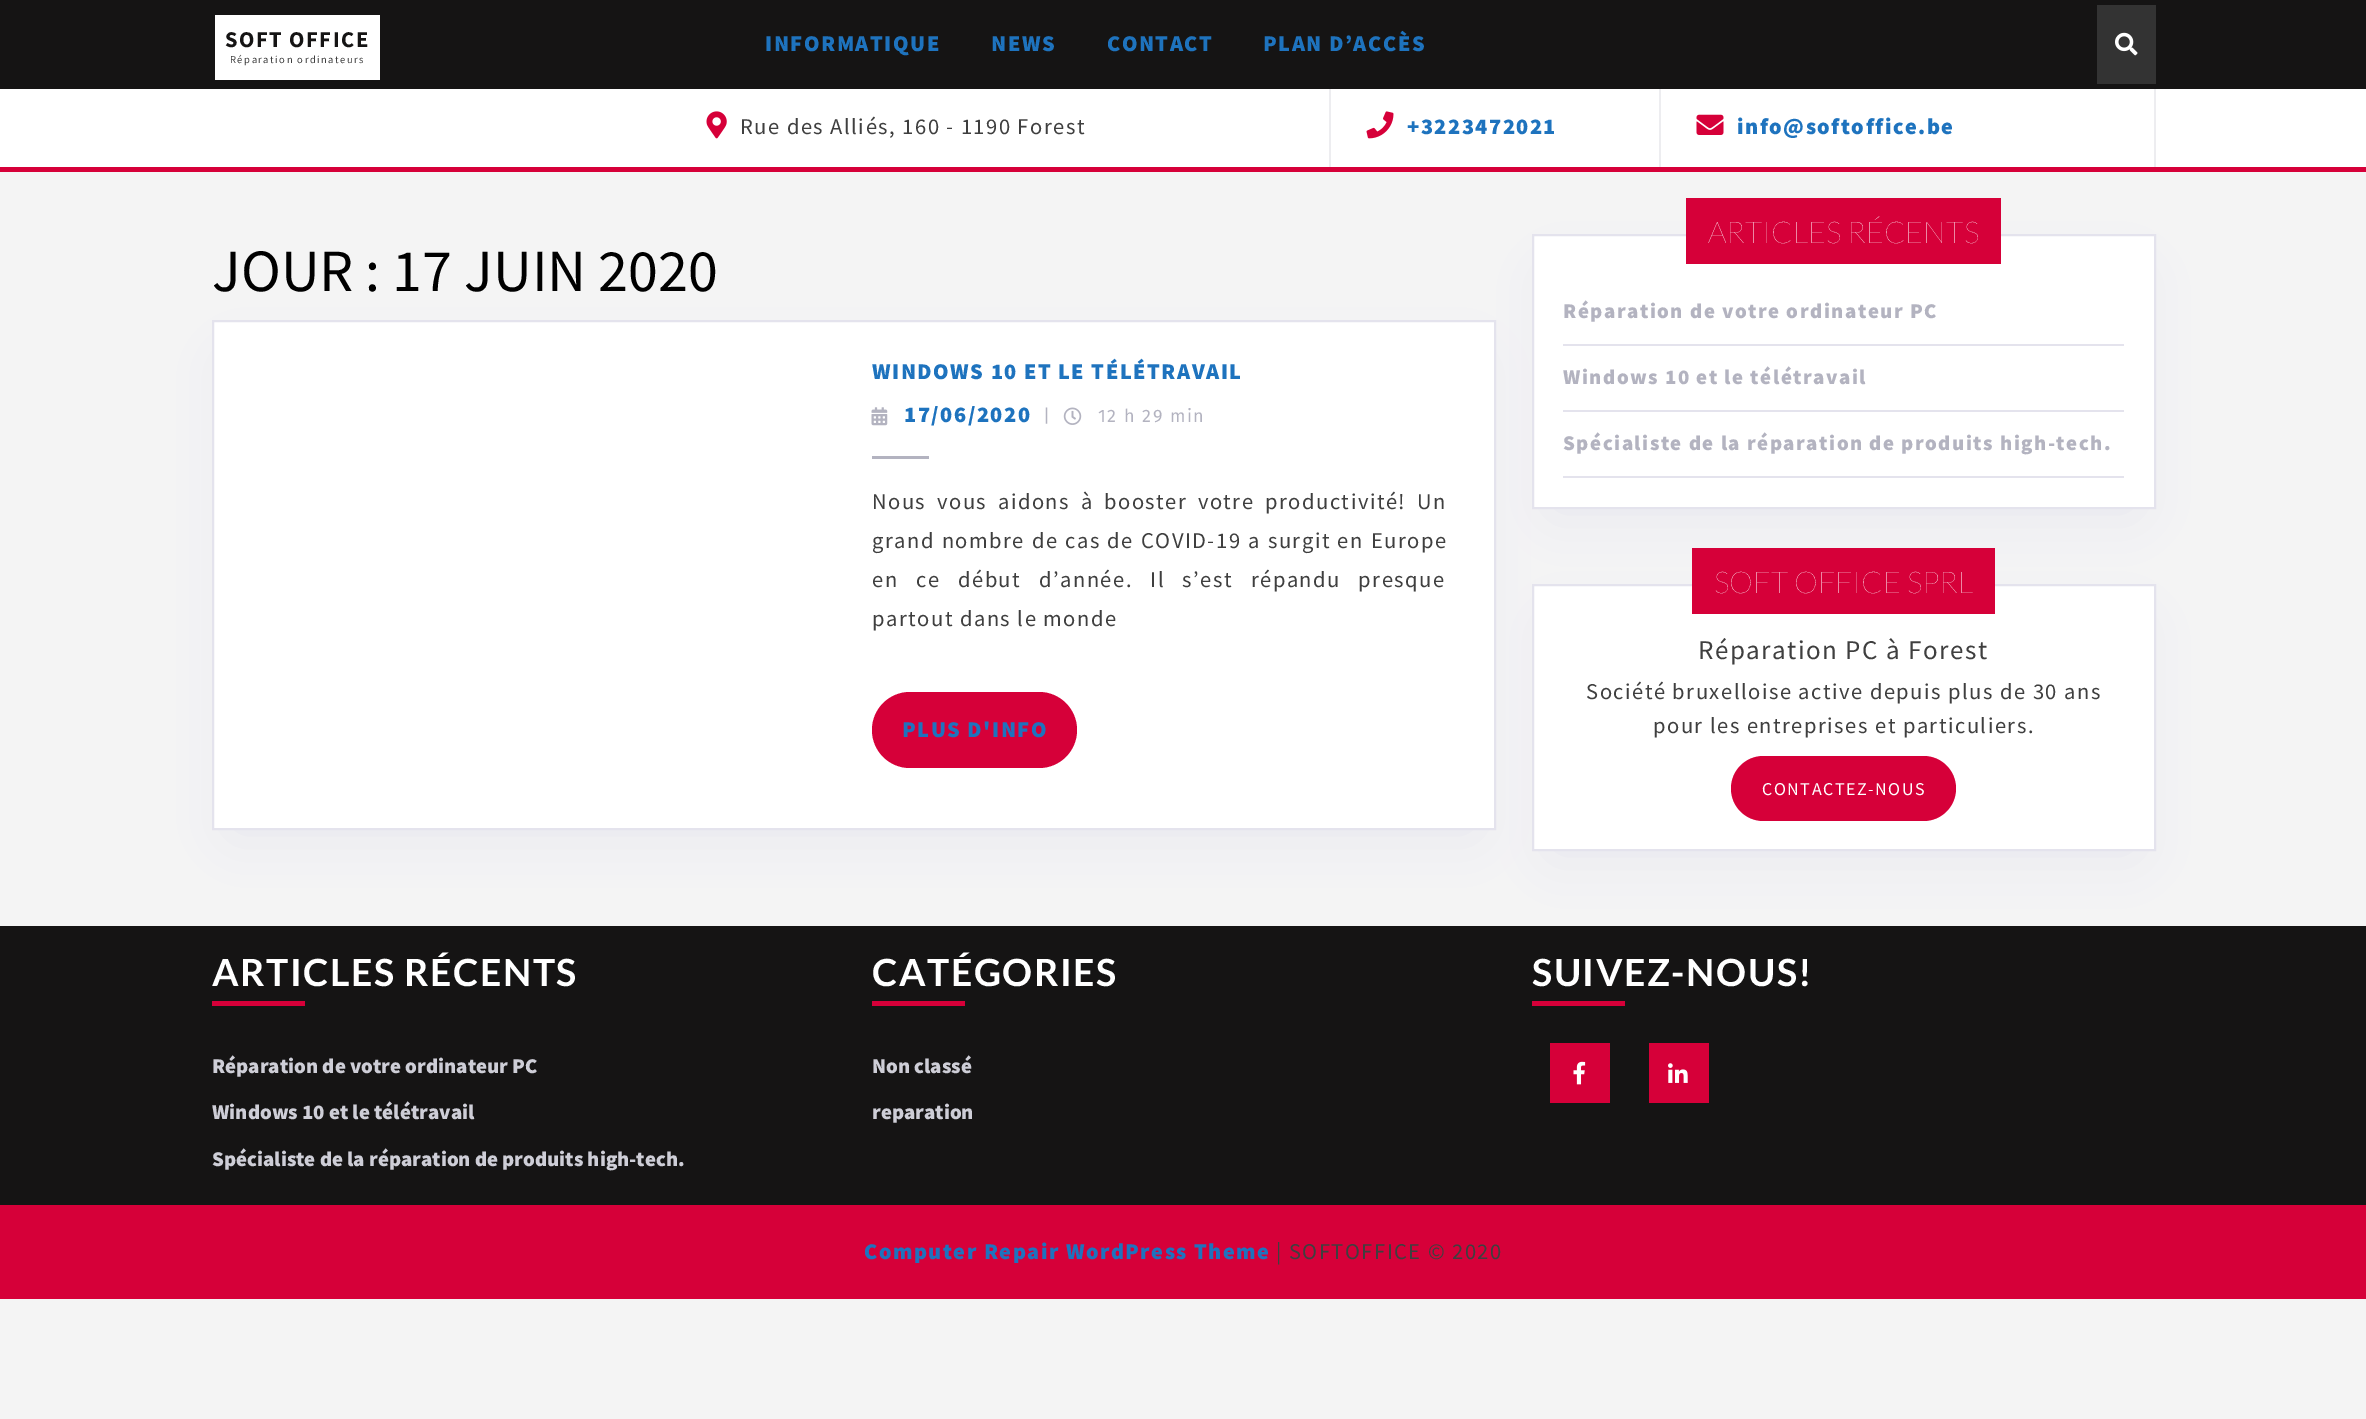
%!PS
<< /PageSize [2366 1419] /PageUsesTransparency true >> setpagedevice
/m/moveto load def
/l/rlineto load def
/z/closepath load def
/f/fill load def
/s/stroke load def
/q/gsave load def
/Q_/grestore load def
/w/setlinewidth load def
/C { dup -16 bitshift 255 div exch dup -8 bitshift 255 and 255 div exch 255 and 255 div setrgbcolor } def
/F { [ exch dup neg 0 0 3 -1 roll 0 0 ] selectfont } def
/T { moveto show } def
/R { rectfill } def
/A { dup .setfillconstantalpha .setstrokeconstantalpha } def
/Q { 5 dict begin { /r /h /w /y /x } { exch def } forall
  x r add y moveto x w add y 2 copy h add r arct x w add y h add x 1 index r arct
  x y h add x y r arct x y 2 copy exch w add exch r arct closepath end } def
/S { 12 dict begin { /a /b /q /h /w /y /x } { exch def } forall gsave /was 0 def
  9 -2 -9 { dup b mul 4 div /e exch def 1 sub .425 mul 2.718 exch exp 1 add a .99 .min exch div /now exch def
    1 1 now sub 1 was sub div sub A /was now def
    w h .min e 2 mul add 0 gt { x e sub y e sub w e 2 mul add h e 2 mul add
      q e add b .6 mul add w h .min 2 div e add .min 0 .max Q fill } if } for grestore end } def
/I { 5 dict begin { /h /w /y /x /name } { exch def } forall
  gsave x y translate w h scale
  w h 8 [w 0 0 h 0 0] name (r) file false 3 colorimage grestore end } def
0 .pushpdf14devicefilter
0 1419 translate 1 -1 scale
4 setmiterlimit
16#F4F4F4 C
0 0 2366 1419 R
16#FFFFFF C
0 89 2366 78 R
16#151414 C
0 0 2366 89 R
16#FFFFFF C
215 15 165 65 R
/SourceSansPro-Bold 22.5 F
16#151414 C
225 47 m 1.5 0 (SOFT OFFICE) ashow
/SourceSansPro-Regular 10.5 F
16#3F3F3F C
230 63 m 1.5 0 (Réparation ordinateurs) ashow
/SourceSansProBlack-Black 22.5 F
16#1E73BE C
765 51 m 1.5 0 (INFORMATIQUE) ashow
991 51 m 1.5 0 (NEWS) ashow
1107 51 m 1.5 0 (CONTACT) ashow
1263 51 m 1.5 0 (PLAN D’ACCÈS) ashow
16#333333 C
2097 5 59 79 R
(1.rgb) 2115 32 23 24 I
16#D60039 C
0 167 2366 5 R
16#EDEDF0 C
1329 89 2 78 R
(2.rgb) 706 111 21 28 I
/SourceSansPro-Regular 22.5 F
16#3F3F3F C
740 134 m 1.5 0 (Rue des Alliés, 160 - 1190 Forest) ashow
16#EDEDF0 C
1659 89 2 78 R
(3.rgb) 1366 111 28 28 I
/SourceSansProBlack-Black 22.5 F
16#1E73BE C
1407 134 m 1.5 0 (+3223472021) ashow
16#EDEDF0 C
2154 89 2 78 R
(4.rgb) 1696 114 28 21 I
16#1E73BE C
1737 134 m 1.5 0 (info@softoffice.be) ashow
16#E4E3ED C
234 365 1239 465 0 26 1 S
/SourceSansPro-Regular 60 F
16#000000 C
(JOUR : 17 JUIN 2020) 212 291 T
16#FFFFFF C
213 321 m 1282 0 l 0 508 l -1282 0 l z q f Q_
16#E4E3ED C
2 w
s
/SourceSansProBlack-Black 22.5 F
16#1E73BE C
872 379 m 1.5 0 (WINDOWS 10 ET LE TÉLÉTRAVAIL) ashow
(5.rgb) 871 407 17 19 I
904 422 m 1.5 0 (17/06/2020) ashow
/FiraSans-Regular 18 F
16#B3B3C0 C
1043 422 m 1.5 0 (|) ashow
(6.rgb) 1063 407 19 18 I
1098 422 m 1.5 0 (12 h 29 min) ashow
872 456 57 3 R
/SourceSansPro-Regular 22.5 F
16#3F3F3F C
872 509 m 4.5 0 32 1.5 0 (Nous vous aidons à booster votre productivité! Un) awidthshow
872 548 m .75 0 32 1.5 0 (grand nombre de cas de COVID-19 a surgit en Europe) awidthshow
872 587 m 11.5 0 32 1.5 0 (en ce début d’année. Il s’est répandu presque) awidthshow
872 626 m 1.5 0 (partout dans le monde) ashow
16#D60039 C
872 692 205 76 38 Q f
/SourceSansProBlack-Black 22.5 F
16#1E73BE C
902 737 m 1.5 0 (PLUS D'INFO) ashow
16#E4E3ED C
1554 279 579 230 0 26 1 S
16#FFFFFF C
1533 235 m 622 0 l 0 273 l -622 0 l z q f Q_
16#E4E3ED C
s
16#D60039 C
1686 198 315 66 R
/Lato-Thin 30 F
16#FFFFFF C
(ARTICLES RÉCENTS) 1708 243 T
16#E4E3ED C
1563 344 561 2 R
/SourceSansProBlack-Black 21 F
16#B3B3C0 C
1563 318 m 1.5 0 (Réparation de votre ordinateur PC) ashow
16#E4E3ED C
1563 410 561 2 R
16#B3B3C0 C
1563 384 m 1.5 0 (Windows 10 et le télétravail) ashow
16#E4E3ED C
1563 476 561 2 R
16#B3B3C0 C
1563 450 m 1.5 0 (Spécialiste de la réparation de produits high-tech.) ashow
16#151414 C
0 926 2366 279 R
16#E4E3ED C
1554 629 579 222 0 26 1 S
16#FFFFFF C
1533 585 m 622 0 l 0 265 l -622 0 l z q f Q_
16#E4E3ED C
s
16#D60039 C
1692 548 303 66 R
/Lato-Thin 30 F
16#FFFFFF C
(SOFT OFFICE SPRL) 1714 593 T
/SourceSansPro-Regular 27 F
16#3F3F3F C
1698 659 m 1.5 0 (Réparation PC à Forest) ashow
/SourceSansPro-Regular 22.5 F
1586 699 m 1.5 0 (Société bruxelloise active depuis plus de 30 ans) ashow
1653 733 m 1.5 0 (pour les entreprises et particuliers.) ashow
16#D60039 C
1731 756 225 65 32.5 Q f
/SourceSansPro-Regular 18 F
16#FFFFFF C
1762 795 m 1.5 0 (CONTACTEZ-NOUS) ashow
/Lato-Bold 37.5 F
212 986 m 1.5 0 (ARTICLES RÉCENTS) ashow
16#D60039 C
212 1001 93 5 R
/SourceSansProBlack-Black 21 F
16#CECED7 C
(Réparation de votre ordinateur PC) 212 1073 T
(Windows 10 et le télétravail) 212 1119 T
(Spécialiste de la réparation de produits high-tech.) 212 1166 T
/Lato-Bold 37.5 F
16#FFFFFF C
872 986 m 1.5 0 (CATÉGORIES) ashow
16#D60039 C
872 1001 93 5 R
/SourceSansProBlack-Black 21 F
16#CECED7 C
(Non classé) 872 1073 T
(reparation) 872 1119 T
/Lato-Bold 37.5 F
16#FFFFFF C
1532 986 m 1.5 0 (SUIVEZ-NOUS!) ashow
16#D60039 C
1532 1001 93 5 R
1550 1043 60 60 R
(7.rgb) 1573 1061 13 24 I
1649 1043 60 60 R
(8.rgb) 1668 1063 20 20 I
0 1205 2366 94 R
/SourceSansProBlack-Black 22.5 F
16#1E73BE C
864 1259 m 1.5 0 (Computer Repair WordPress Theme) ashow
/SourceSansPro-Regular 22.5 F
16#3F3F3F C
1276 1259 m 1.5 0 (| SOFTOFFICE © 2020) ashow
.poppdf14devicefilter showpage
